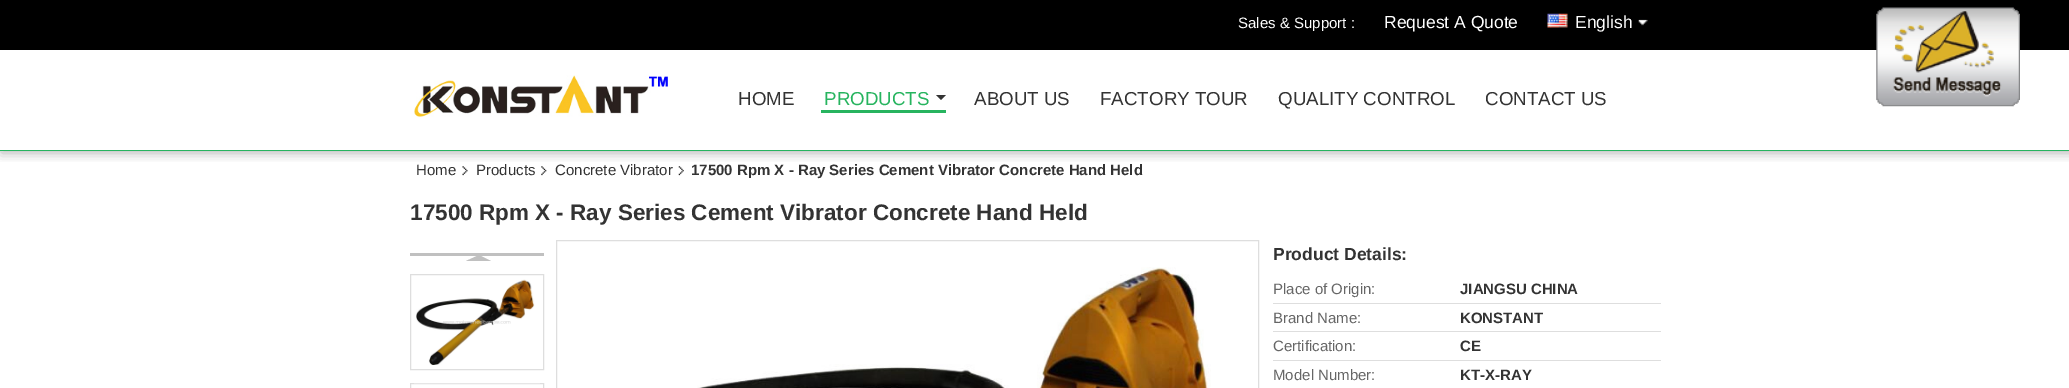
%!PS
<< /PageSize [2069 388] /PageUsesTransparency true >> setpagedevice
/m/moveto load def
/l/rlineto load def
/z/closepath load def
/f/fill load def
/q/gsave load def
/Q_/grestore load def
/C { dup -16 bitshift 255 div exch dup -8 bitshift 255 and 255 div exch 255 and 255 div setrgbcolor } def
/F { [ exch dup neg 0 0 3 -1 roll 0 0 ] selectfont } def
/T { moveto show } def
/R { rectfill } def
/A { dup .setfillconstantalpha .setstrokeconstantalpha } def
/Q { 5 dict begin { /r /h /w /y /x } { exch def } forall
  x r add y moveto x w add y 2 copy h add r arct x w add y h add x 1 index r arct
  x y h add x y r arct x y 2 copy exch w add exch r arct closepath end } def
/S { 12 dict begin { /a /b /q /h /w /y /x } { exch def } forall gsave /was 0 def
  9 -2 -9 { dup b mul 4 div /e exch def 1 sub .425 mul 2.718 exch exp 1 add a .99 .min exch div /now exch def
    1 1 now sub 1 was sub div sub A /was now def
    w h .min e 2 mul add 0 gt { x e sub y e sub w e 2 mul add h e 2 mul add
      q e add b .6 mul add w h .min 2 div e add .min 0 .max Q fill } if } for grestore end } def
/I { 5 dict begin { /h /w /y /x /name } { exch def } forall
  gsave x y translate w h scale
  w h 8 [w 0 0 h 0 0] name (r) file false 3 colorimage grestore end } def
0 .pushpdf14devicefilter
0 388 translate 1 -1 scale
4 setmiterlimit
16#FFFFFF C
0 0 2069 388 R
q
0 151 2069 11 rectclip
16#000000 C
1 1 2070 152 0 6 .3 S
Q_
16#27B45F C
0 150 2069 1 R
16#000000 C
0 0 2069 50 R
/LiberationSans-Regular 15 F
16#FFFFFF C
(Sales & Support :) 1238 28 T
/LiberationSans-Regular 17.5 F
(Request A Quote) 1384 28 T
(1.rgb) 1547 13 21 15 I
(English) 1575 28 T
(2.rgb) 1638 19 10 7 I
(3.rgb) 414 75 254 43 I
/LiberationSans-Regular 18.75 F
16#333333 C
(HOME) 738 105 T
16#27B45F C
821 110 125 3 R
(PRODUCTS) 824 105 T
16#333333 C
936 95 m 10 0 l -5 5 l z f
(ABOUT US) 974 105 T
(FACTORY TOUR) 1100 105 T
(QUALITY CONTROL) 1278 105 T
(CONTACT US) 1485 105 T
(4.rgb) 1876 7 144 100 I
/LiberationSans-Regular 15 F
(Home) 416 175 T
(5.rgb) 462 166 6 10 I
(Products) 476 175 T
(6.rgb) 541 166 6 10 I
(Concrete Vibrator) 555 175 T
(7.rgb) 678 166 6 10 I
/LiberationSans-Bold 15 F
(17500 Rpm X - Ray Series Cement Vibrator Concrete Hand Held) 691 175 T
/LiberationSans-Bold 22.5 F
(17500 Rpm X - Ray Series Cement Vibrator Concrete Hand Held) 410 220 T
16#C0C0C0 C
410 253 134 3 R
491 261 m -25 0 l 13 -6 l z f
16#DEDEDE C
410.5 274.5 133 95 rectstroke
(8.rgb) 416 279 119 86 I
410.5 383.5 133 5 rectstroke
16#E6E6E6 C
414 383 126 1 R
16#DEDEDE C
556.5 240.5 702 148 rectstroke
(9.rgb) 697 267 514 121 I
/LiberationSans-Bold 17.5 F
16#333333 C
(Product Details:) 1273 260 T
/LiberationSans-Regular 15 F
16#666666 C
(Place of Origin:) 1273 294 T
16#DEDEDE C
1273 303 388 1 R
/LiberationSans-Bold 15 F
16#333333 C
(JIANGSU CHINA) 1460 294 T
/LiberationSans-Regular 15 F
16#666666 C
(Brand Name:) 1273 323 T
16#DEDEDE C
1273 331 388 1 R
/LiberationSans-Bold 15 F
16#333333 C
(KONSTANT) 1460 323 T
/LiberationSans-Regular 15 F
16#666666 C
(Certification:) 1273 351 T
16#DEDEDE C
1273 360 388 1 R
/LiberationSans-Bold 15 F
16#333333 C
(CE) 1460 351 T
/LiberationSans-Regular 15 F
16#666666 C
(Model Number:) 1273 380 T
/LiberationSans-Bold 15 F
16#333333 C
(KT-X-RAY) 1460 380 T
.poppdf14devicefilter showpage
